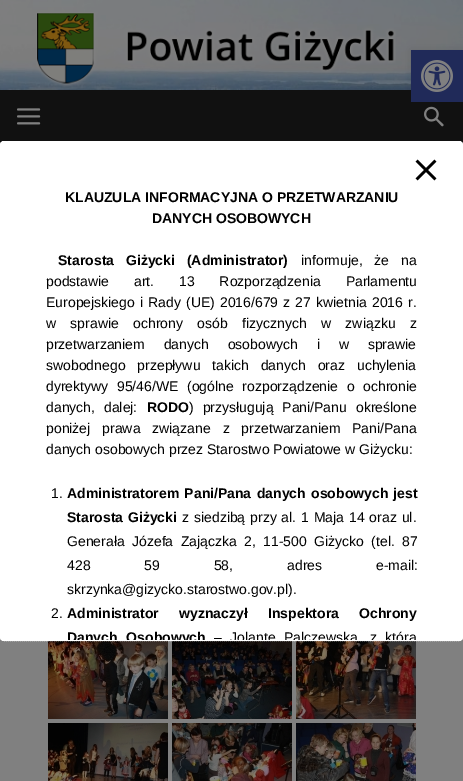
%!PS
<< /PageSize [463 781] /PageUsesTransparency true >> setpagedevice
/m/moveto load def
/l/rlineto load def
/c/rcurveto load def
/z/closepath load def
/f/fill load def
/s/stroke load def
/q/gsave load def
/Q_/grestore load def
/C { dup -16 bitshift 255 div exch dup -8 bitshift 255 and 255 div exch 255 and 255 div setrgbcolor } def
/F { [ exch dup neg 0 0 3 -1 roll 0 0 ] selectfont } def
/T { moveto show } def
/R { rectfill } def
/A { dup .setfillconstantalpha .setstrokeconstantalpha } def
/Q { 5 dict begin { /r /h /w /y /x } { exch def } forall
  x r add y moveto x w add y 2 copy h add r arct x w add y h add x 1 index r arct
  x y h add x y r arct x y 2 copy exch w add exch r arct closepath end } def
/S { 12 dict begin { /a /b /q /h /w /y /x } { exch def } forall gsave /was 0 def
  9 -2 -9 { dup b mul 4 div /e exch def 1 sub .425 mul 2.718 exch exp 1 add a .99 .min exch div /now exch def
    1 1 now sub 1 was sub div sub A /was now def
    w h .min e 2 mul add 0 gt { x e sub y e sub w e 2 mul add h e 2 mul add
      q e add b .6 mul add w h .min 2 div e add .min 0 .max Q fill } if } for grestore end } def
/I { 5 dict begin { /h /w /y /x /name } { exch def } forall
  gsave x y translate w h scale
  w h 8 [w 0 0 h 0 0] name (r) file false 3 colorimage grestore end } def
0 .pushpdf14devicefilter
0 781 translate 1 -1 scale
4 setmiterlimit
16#FFFFFF C
0 0 463 781 R
(1.rgb) 0 0 463 90 I
(2.rgb) 36 12 360 75 I
16#111111 C
0 90 463 54 R
(3.rgb) 17 108 24 17 I
(4.rgb) 424 106 20 21 I
16#808080 C
0 144 463 637 R
(5.rgb) 0 144 463 1 I
(6.rgb) 48 641 120 78 I
(7.rgb) 172 641 120 78 I
(8.rgb) 296 641 120 78 I
(9.rgb) 48 723 120 58 I
(10.rgb) 172 723 120 58 I
(11.rgb) 296 723 120 58 I
16#000000 C
411 50 52 52 0 5 .1 S
16#202A59 C
411 50 52 52 R
(12.rgb) 421 60 32 32 I
16#FFFFFF C
0 141 463 500 4 Q f
[1 1] 0 setdash
4 141.5 m 455 0 l 2 0 3.5 1.5 3.5 3.5 c 0 492 l 0 2 -1.5 3.5 -3.5 3.5 c -455 0 l -2 0 -3.5 -1.5 -3.5 -3.5 c 0 -492 l 0 -2 1.5 -3.5 3.5 -3.5 c z s
(13.rgb) 415 159 22 22 I
/LiberationSans-Bold 14 F
16#000000 C
(KLAUZULA INFORMACYJNA O PRZETWARZANIU) 65 202 T
(DANYCH OSOBOWYCH) 152 223 T
58 265 m 8 0 32 (Starosta Giżycki \(Administrator\)) widthshow
/LiberationSans-Regular 14 F
301 265 m 8 0 32 (informuje, że na) widthshow
46 286 m 21 0 32 (podstawie art. 13 Rozporządzenia Parlamentu) widthshow
46 307 m 1.25 0 32 (Europejskiego i Rady \(UE\) 2016/679 z 27 kwietnia 2016 r.) widthshow
46 328 m 10.5 0 32 (w sprawie ochrony osób fizycznych w związku z) widthshow
46 349 m 15 0 32 (przetwarzaniem danych osobowych i w sprawie) widthshow
46 370 m 8 0 32 (swobodnego przepływu takich danych oraz uchylenia) widthshow
46 391 m 4.75 0 32 (dyrektywy 95/46/WE \(ogólne rozporządzenie o ochronie) widthshow
46 412 m 5 0 32 (danych, dalej:) widthshow
/LiberationSans-Bold 14 F
(RODO) 147 412 T
/LiberationSans-Regular 14 F
189 412 m 5 0 32 (\) przysługują Pani/Panu określone) widthshow
46 433 m 8 0 32 (poniżej prawa związane z przetwarzaniem Pani/Pana) widthshow
(danych osobowych przez Starostwo Powiatowe w Giżycku:) 46 454 T
(1.) 51 498 T
/LiberationSans-Bold 14 F
67 498 m 1.5 0 32 (Administratorem Pani/Pana danych osobowych jest) widthshow
67 522 m 1 0 32 (Starosta Giżycki) widthshow
/LiberationSans-Regular 14 F
182 522 m 1 0 32 (z siedzibą przy al. 1 Maja 14 oraz ul.) widthshow
67 546 m 3.5 0 32 (Generała Józefa Zajączka 2, 11-500 Giżycko \(tel. 87) widthshow
67 570 m 50 0 32 (428 59 58, adres e-mail:) widthshow
(skrzynka@gizycko.starostwo.gov.pl\).) 67 594 T
(2.) 51 618 T
/LiberationSans-Bold 14 F
67 618 m 16.5 0 32 (Administrator wyznaczył Inspektora Ochrony) widthshow
q
1 142 461 498 3 Q clip newpath
67 642 m 5 0 32 (Danych Osobowych) widthshow
/LiberationSans-Regular 14 F
214 642 m 4.5 0 32 (– Jolantę Palczewską, z którą) widthshow
Q_
.poppdf14devicefilter showpage
